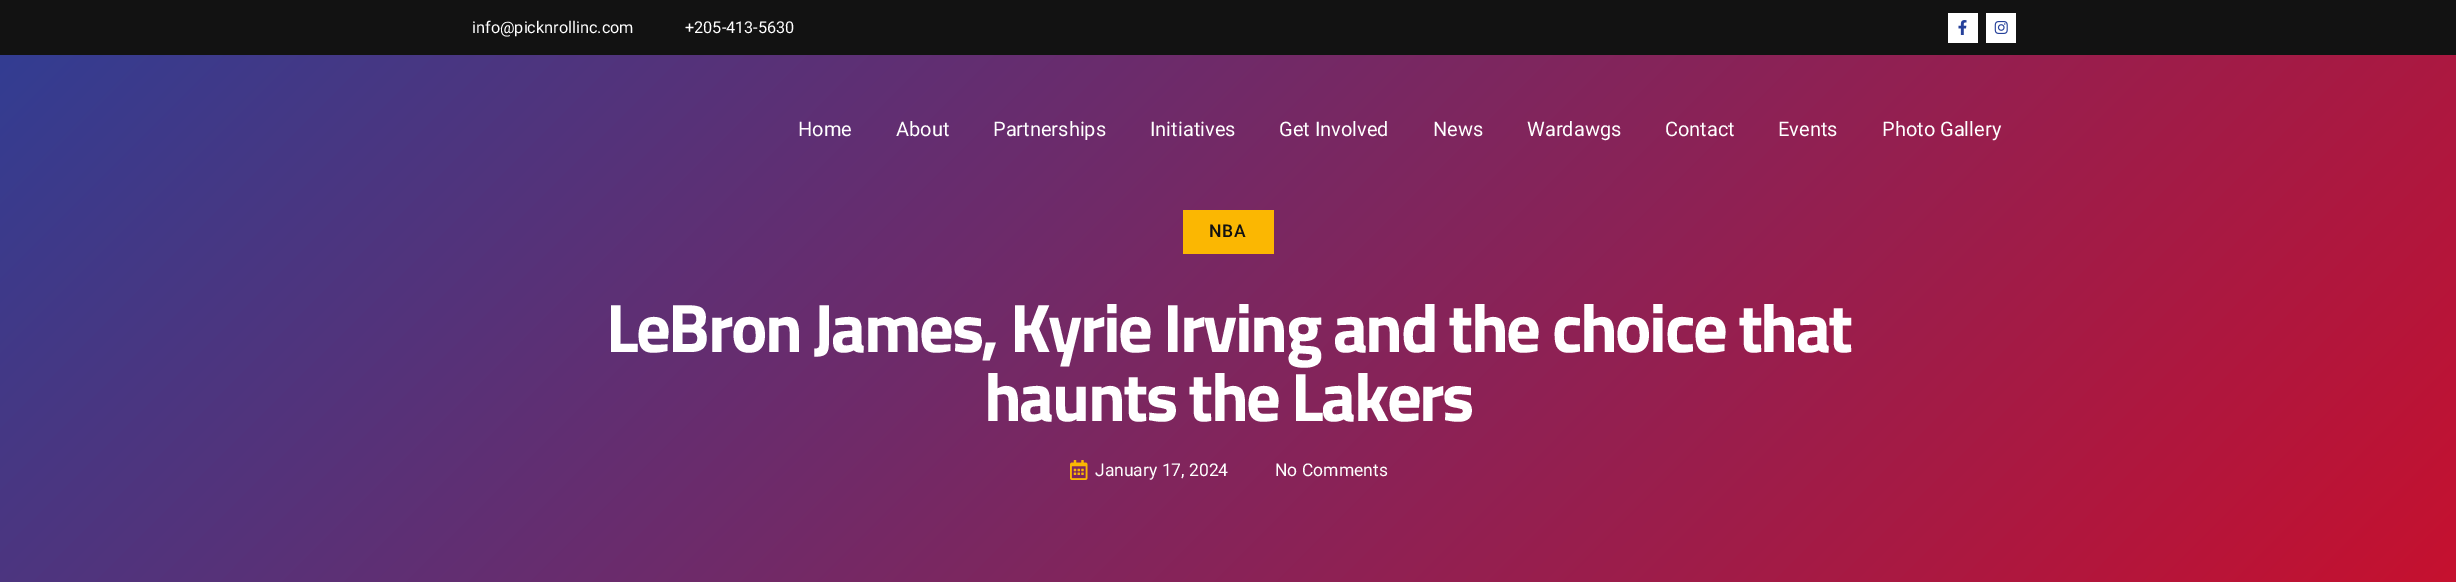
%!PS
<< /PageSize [2456 582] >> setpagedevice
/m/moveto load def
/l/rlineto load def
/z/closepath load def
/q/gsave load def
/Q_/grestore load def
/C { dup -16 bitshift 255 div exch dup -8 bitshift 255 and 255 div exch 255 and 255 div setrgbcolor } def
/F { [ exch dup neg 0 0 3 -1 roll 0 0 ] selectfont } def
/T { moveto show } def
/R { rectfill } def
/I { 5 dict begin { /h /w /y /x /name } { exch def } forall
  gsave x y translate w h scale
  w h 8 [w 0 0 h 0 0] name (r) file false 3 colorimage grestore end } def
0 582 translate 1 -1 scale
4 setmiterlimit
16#FFFFFF C
0 0 2456 582 R
16#121212 C
0 0 2456 55 R
/Roboto-Regular 16.25 F
16#FFFFFF C
(info@picknrollinc.com) 472 33 T
(+205-413-5630) 685 33 T
1948 13 30 30 R
(1.rgb) 1958 20 9 15 I
1986 13 30 30 R
(2.rgb) 1994 21 14 13 I
q 0 55 m 2456 0 l 0 527 l -2456 0 l z clip newpath
<< /ShadingType 2 /ColorSpace /DeviceRGB /Coords [407 -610 2049 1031] /Extend [true true] /Function << /FunctionType 2 /Domain [0 1] /C0 [.149 .255 .604] /C1 [.784 .063 .18] /N 1 >> >> shfill Q_
/Roboto-Regular 20 F
(Home) 798 136 T
(About) 896 136 T
(Partnerships) 993 136 T
(Initiatives) 1150 136 T
(Get Involved) 1279 136 T
(News) 1433 136 T
(Wardawgs) 1527 136 T
(Contact) 1665 136 T
(Events) 1778 136 T
(Photo Gallery) 1882 136 T
16#FBB702 C
1183 210 91 44 R
/Roboto-Medium 17.5 F
16#121212 C
1209 237 m 1 0 (NBA) ashow
/TitilliumWeb-Bold 68.7 F
16#FFFFFF C
606 352 m -2.5 0 (LeBron James, Kyrie Irving and the choice that) ashow
984 421 m -2.5 0 (haunts the Lakers) ashow
(3.rgb) 1070 460 18 20 I
/Roboto-Regular 17.5 F
(January 17, 2024) 1095 476 T
(No Comments) 1275 476 T
showpage
